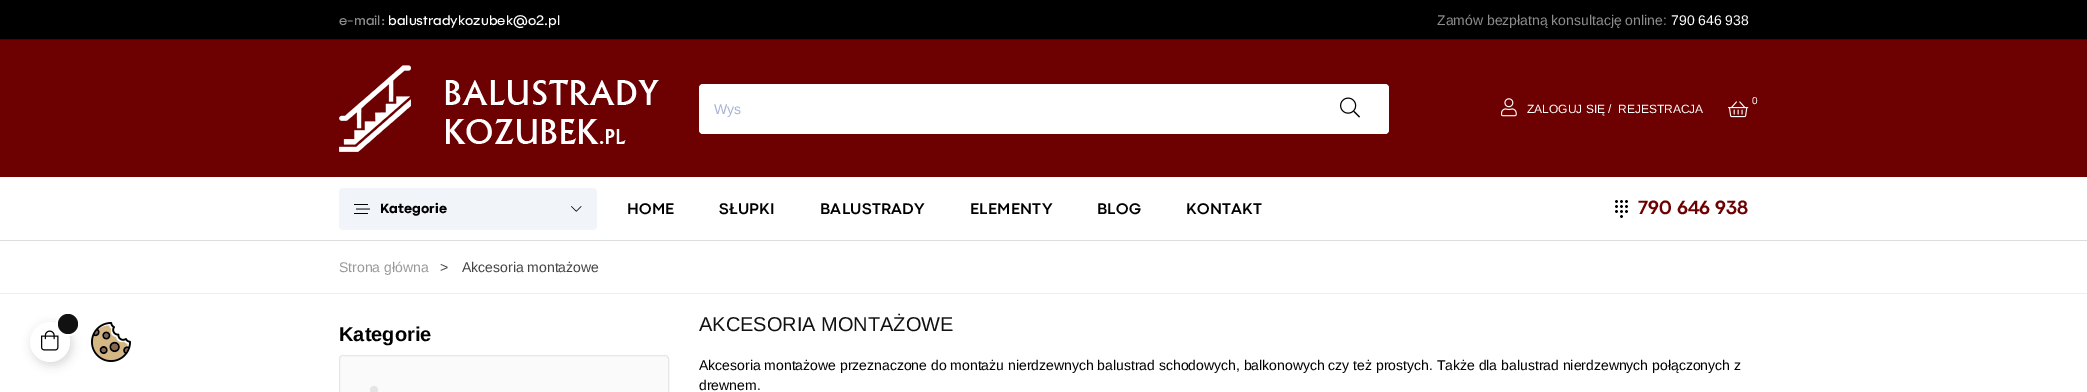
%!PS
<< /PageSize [2087 392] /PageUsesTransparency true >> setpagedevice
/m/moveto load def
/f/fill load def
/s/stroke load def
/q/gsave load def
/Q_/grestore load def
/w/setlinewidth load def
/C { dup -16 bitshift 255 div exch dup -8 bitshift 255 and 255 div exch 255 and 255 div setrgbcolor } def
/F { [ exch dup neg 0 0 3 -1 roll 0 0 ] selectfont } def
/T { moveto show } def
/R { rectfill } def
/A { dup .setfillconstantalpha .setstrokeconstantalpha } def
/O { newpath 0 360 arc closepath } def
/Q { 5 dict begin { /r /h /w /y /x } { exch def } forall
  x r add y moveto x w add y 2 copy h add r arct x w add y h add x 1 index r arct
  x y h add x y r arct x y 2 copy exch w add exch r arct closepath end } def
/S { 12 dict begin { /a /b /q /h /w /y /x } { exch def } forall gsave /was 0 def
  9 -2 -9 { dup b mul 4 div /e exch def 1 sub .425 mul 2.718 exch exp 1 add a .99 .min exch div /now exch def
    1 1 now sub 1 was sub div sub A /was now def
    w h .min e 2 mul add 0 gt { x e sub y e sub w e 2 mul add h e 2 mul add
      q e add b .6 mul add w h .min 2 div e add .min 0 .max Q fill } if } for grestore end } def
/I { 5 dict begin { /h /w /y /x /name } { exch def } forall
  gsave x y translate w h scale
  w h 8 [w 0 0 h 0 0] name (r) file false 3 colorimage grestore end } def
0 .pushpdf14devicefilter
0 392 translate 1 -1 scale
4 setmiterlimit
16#FFFFFF C
0 0 2087 392 R
16#000000 C
32 325 40 40 20 5 .15 S
16#FFFFFF C
50 342 20 O f
(1.rgb) 41 330 18 21 I
2 w
68 324 11 O s
16#111111 C
68 324 10 O f
(2.rgb) 91 322 40 40 I
16#000000 C
0 0 2087 39 R
/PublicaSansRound-Regular 14 F
16#8C8D8D C
(e-mail:) 339 25 T
16#FFFFFF C
(balustradykozubek@o2.pl) 388 25 T
/LiberationSans-Regular 14 F
16#8C8D8D C
(Zamów bezpłatną konsultację online:) 1437 25 T
16#FFFFFF C
(790 646 938) 1671 25 T
16#171717 C
0 39 2087 1 R
16#6D0000 C
0 40 2087 137 R
16#DDDDDD C
0 240 2087 1 R
(3.rgb) 339 65 320 87 I
16#FFFFFF C
699 84 690 50 4 Q f
16#A8B3D3 C
(Wys) 714 114 T
(4.rgb) 1340 97 20 21 I
(5.rgb) 1728 101 21 17 I
/LiberationSans-Regular 10 F
16#FFFFFF C
(0) 1752 104 T
(6.rgb) 1501 98 16 19 I
/LiberationSans-Regular 12 F
(ZALOGUJ SIĘ) 1527 113 T
(/) 1608 113 T
(REJESTRACJA) 1618 113 T
16#F1F4F9 C
339 188 258 42 4 Q f
(7.rgb) 354 204 16 10 I
/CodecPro-ExtraBold 14 F
16#000000 C
(Kategorie) 380 213 T
(8.rgb) 571 206 11 6 I
/CodecPro-Bold 16 F
627 214 m .25 0 (HOME) ashow
719 214 m .25 0 (SŁUPKI) ashow
820 214 m .25 0 (BALUSTRADY) ashow
970 214 m .25 0 (ELEMENTY) ashow
1097 214 m .25 0 (BLOG) ashow
1186 214 m .25 0 (KONTAKT) ashow
(9.rgb) 1615 200 13 18 I
/CodecPro-Bold 20 F
16#6D0000 C
(790 646 938) 1638 214 T
/LiberationSans-Regular 14 F
16#999999 C
(Strona główna) 339 272 T
16#444444 C
(>) 440 272 T
(Akcesoria montażowe) 462 272 T
16#EFEFEF C
0 293 2087 1 R
/LiberationSans-Bold 20 F
16#000000 C
(Kategorie) 339 341 T
16#FAFAFA C
339.5 355.5 329 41 3.5 Q q f Q_
16#E6E6E6 C
1 w
s
16#E5E5E5 C
374 390 4 O f
/LiberationSans-Regular 20 F
16#111111 C
(AKCESORIA MONTAŻOWE) 699 331 T
/LiberationSans-Regular 14 F
16#000000 C
(Akcesoria montażowe przeznaczone do montażu nierdzewnych balustrad schodowych, balkonowych czy też prostych. Także dla balustrad nierdzewnych połączonych z) 699 370 T
(drewnem.) 699 390 T
.poppdf14devicefilter showpage
